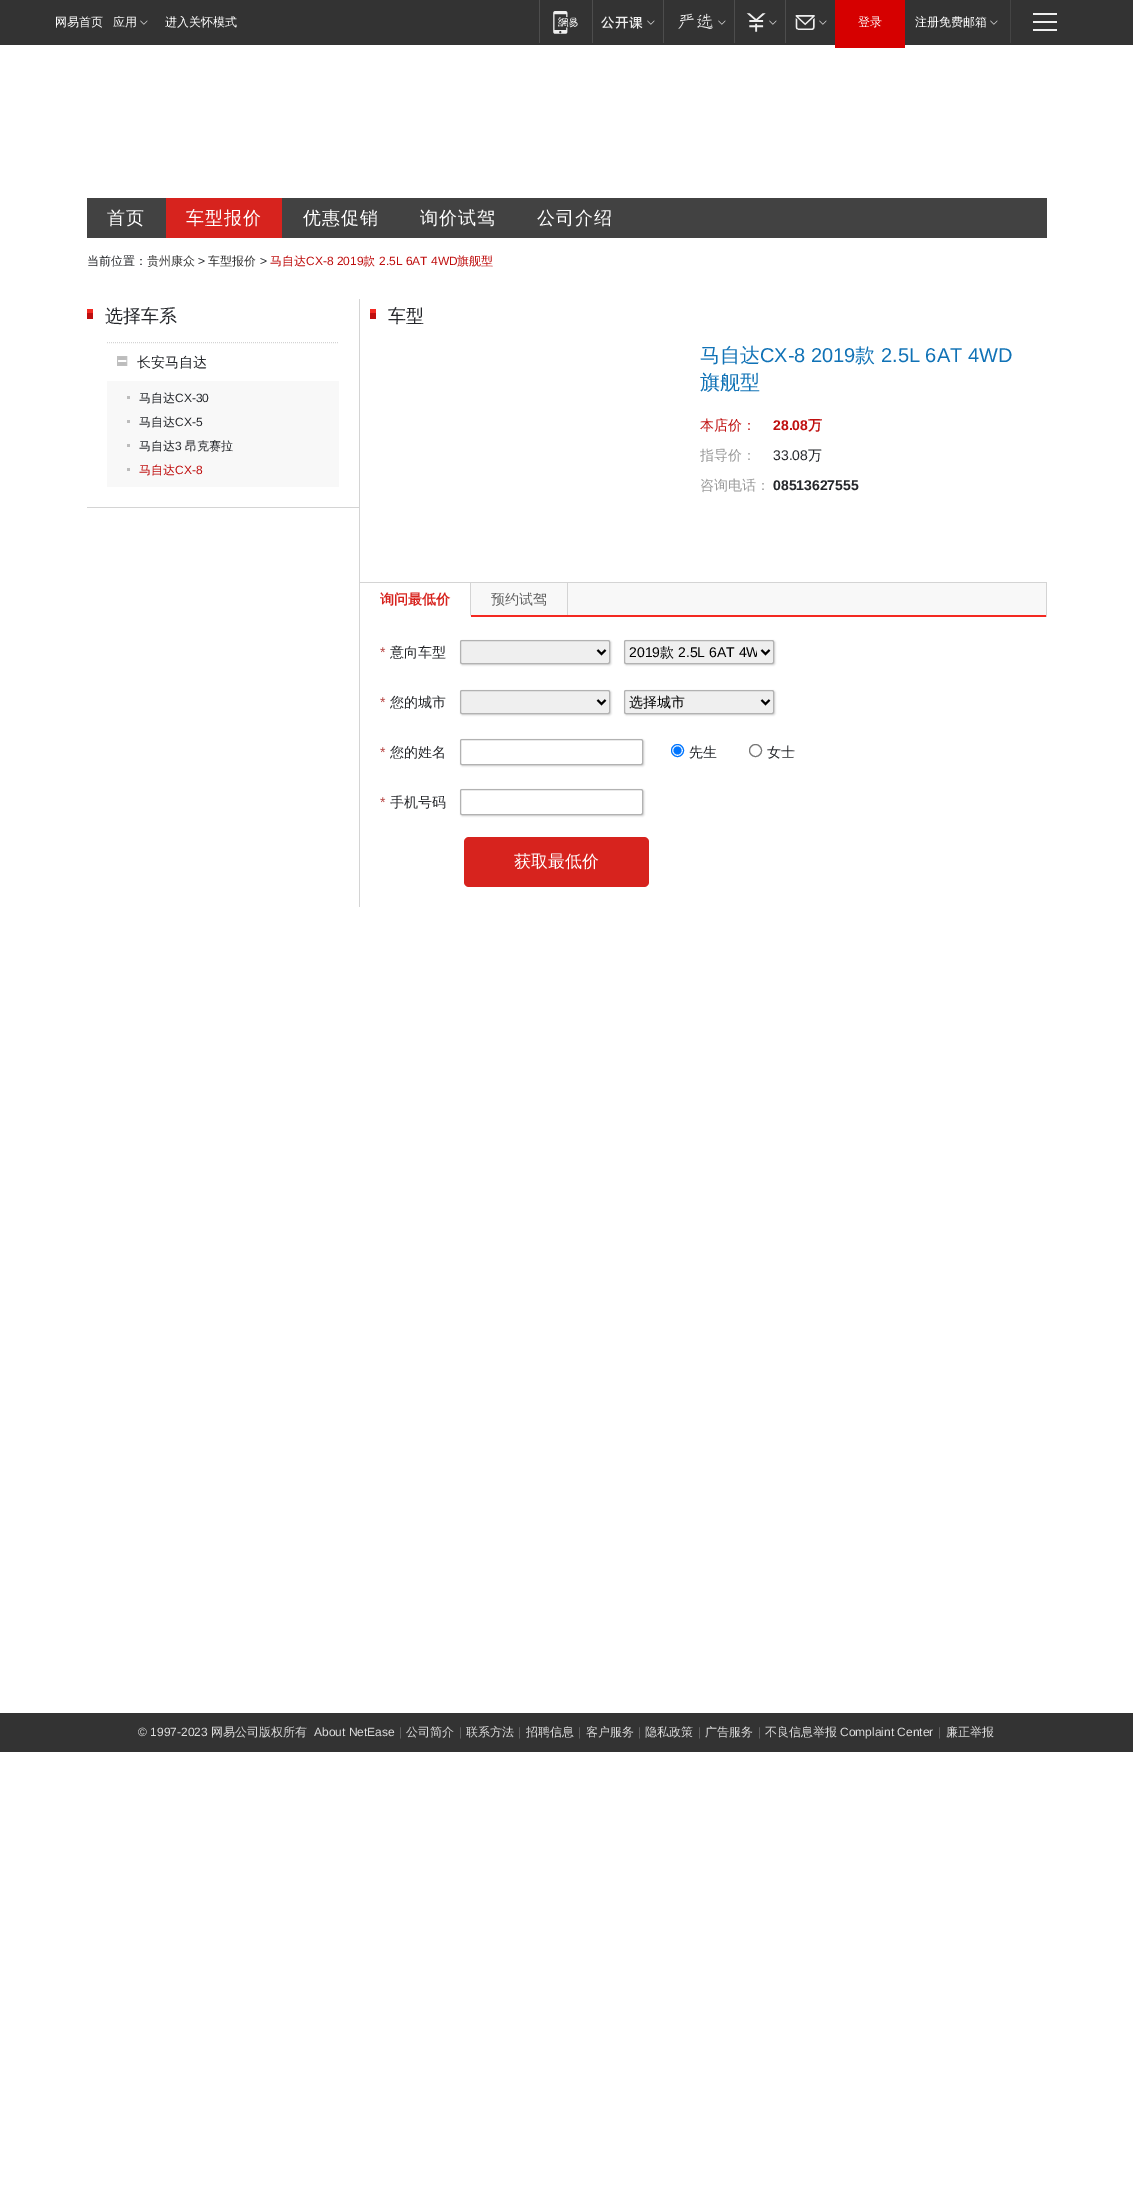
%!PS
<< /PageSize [1133 2189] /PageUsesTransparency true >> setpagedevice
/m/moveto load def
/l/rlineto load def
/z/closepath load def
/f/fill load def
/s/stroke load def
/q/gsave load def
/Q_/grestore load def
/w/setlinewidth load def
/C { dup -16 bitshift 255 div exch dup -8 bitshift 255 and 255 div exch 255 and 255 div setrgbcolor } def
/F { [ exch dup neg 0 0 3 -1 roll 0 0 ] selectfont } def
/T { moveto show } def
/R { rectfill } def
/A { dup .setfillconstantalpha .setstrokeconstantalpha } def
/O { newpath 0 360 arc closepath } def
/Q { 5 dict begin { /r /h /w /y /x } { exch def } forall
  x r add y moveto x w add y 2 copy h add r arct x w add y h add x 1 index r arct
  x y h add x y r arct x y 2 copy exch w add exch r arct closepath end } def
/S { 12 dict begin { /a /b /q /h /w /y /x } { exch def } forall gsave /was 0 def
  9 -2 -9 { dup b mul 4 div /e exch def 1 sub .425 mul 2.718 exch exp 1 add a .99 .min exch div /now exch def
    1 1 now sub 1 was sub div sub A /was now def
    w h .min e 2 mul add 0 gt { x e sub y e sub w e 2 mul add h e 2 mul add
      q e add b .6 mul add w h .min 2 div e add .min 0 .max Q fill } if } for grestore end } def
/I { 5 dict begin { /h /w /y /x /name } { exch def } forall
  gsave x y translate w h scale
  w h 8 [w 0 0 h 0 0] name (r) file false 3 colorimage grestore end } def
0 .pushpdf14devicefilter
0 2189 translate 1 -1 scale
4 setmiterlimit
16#FFFFFF C
0 0 1133 2189 R
16#333333 C
0 0 1133 45 R
/WenQuanYiZenHei-Medium 12 F
16#FFFFFF C
(网易首页) 55 26 T
(应用) 113 26 T
(1.rgb) 140 20 8 5 I
(进入关怀模式) 165 26 T
16#4D4D4D C
539 0 1 43 R
(2.rgb) 553 11 25 23 I
592 0 1 43 R
(3.rgb) 601 16 42 13 I
(1.rgb) 647 20 8 5 I
663 0 1 43 R
(4.rgb) 678 13 35 16 I
(1.rgb) 718 20 8 5 I
734 0 1 43 R
(5.rgb) 746 13 20 19 I
(1.rgb) 769 20 8 5 I
785 0 1 43 R
(6.rgb) 795 15 20 15 I
(1.rgb) 819 20 8 5 I
16#D60000 C
835 0 70 48 R
16#FFFFFF C
(登录) 858 26 T
(注册免费邮箱) 915 26 T
(1.rgb) 990 20 8 5 I
16#444444 C
1010 0 1 43 R
16#EFEFEF C
1033 13 24 2 R
1033 21 24 2 R
1033 29 24 2 R
16#424242 C
87 198 960 40 R
/WenQuanYiZenHei-Medium 18 F
16#FFFFFF C
107 224 m 1 0 (首页) ashow
16#D7231E C
166 198 116 40 R
16#FFFFFF C
186 224 m 1 0 (车型报价) ashow
303 224 m 1 0 (优惠促销) ashow
420 224 m 1 0 (询价试驾) ashow
537 224 m 1 0 (公司介绍) ashow
/WenQuanYiZenHei-Medium 12 F
16#25272B C
(当前位置：) 87 265 T
16#333333 C
(贵州康众) 147 265 T
/LiberationSans-Regular 12 F
16#25272B C
(>) 198 265 T
/WenQuanYiZenHei-Medium 12 F
16#333333 C
(车型报价) 208 265 T
/LiberationSans-Regular 12 F
16#25272B C
(>) 260 265 T
/WenQuanYiZenHei-Medium 12 F
16#BF0F0F C
(马自达) 270 265 T
/LiberationSans-Regular 12 F
(CX-8 2019) 306 265 T
/WenQuanYiZenHei-Medium 12 F
(款) 363 265 T
/LiberationSans-Regular 12 F
(2.5L 6AT 4WD) 379 265 T
/WenQuanYiZenHei-Medium 12 F
(旗舰型) 457 265 T
16#D4D4D4 C
87 507 272 1 R
(7.rgb) 87 309 6 10 I
/WenQuanYiZenHei-Medium 18 F
16#25272B C
(选择车系) 105 322 T
16#D4D4D4 C
[1 1] 0 setdash
107 342.5 m 232 0 l s
(8.rgb) 117 356 11 10 I
/WenQuanYiZenHei-Medium 14 F
16#25272B C
(长安马自达) 137 367 T
16#F8F8F8 C
107 381 232 106 R
/WenQuanYiZenHei-Medium 12 F
16#25272B C
(马自达) 139 402 T
16#BCBCBC C
127 396 3 3 R
/LiberationSans-Regular 12 F
16#25272B C
(CX-30) 175 402 T
/WenQuanYiZenHei-Medium 12 F
(马自达) 139 426 T
16#BCBCBC C
127 420 3 3 R
/LiberationSans-Regular 12 F
16#25272B C
(CX-5) 175 426 T
/WenQuanYiZenHei-Medium 12 F
(马自达) 139 450 T
16#BCBCBC C
127 444 3 3 R
/LiberationSans-Regular 12 F
16#25272B C
(3) 175 450 T
/WenQuanYiZenHei-Medium 12 F
(昂克赛拉) 185 450 T
16#BF0F0F C
(马自达) 139 474 T
16#BCBCBC C
127 468 3 3 R
/LiberationSans-Regular 12 F
16#BF0F0F C
(CX-8) 175 474 T
16#D4D4D4 C
359 299 1 608 R
(7.rgb) 370 309 6 10 I
/WenQuanYiZenHei-Medium 18 F
16#25272B C
(车型) 388 322 T
/WenQuanYiZenHei-Medium 20 F
16#1072B6 C
(马自达) 700 362 T
/LiberationSans-Regular 20 F
(CX-8 2019) 760 362 T
/WenQuanYiZenHei-Medium 20 F
(款) 855 362 T
/LiberationSans-Regular 20 F
(2.5L 6AT 4WD) 881 362 T
/WenQuanYiZenHei-Medium 20 F
(旗舰型) 700 389 T
/WenQuanYiZenHei-Medium 14 F
16#BF0F0F C
(本店价：) 700 430 T
/LiberationSans-Bold 14 F
(28.08) 773 430 T
/WenQuanYiZenHei-Bold 14 F
(万) 808 430 T
/WenQuanYiZenHei-Medium 14 F
16#999999 C
(指导价：) 700 460 T
/LiberationSans-Regular 14 F
16#25272B C
(33.08) 773 460 T
/WenQuanYiZenHei-Medium 14 F
(万) 808 460 T
16#999999 C
(咨询电话：) 700 490 T
/LiberationSans-Bold 14 F
16#25272B C
(08513627555) 773 490 T
16#F8F8F8 C
471 583 575 32 R
16#F42921 C
471 615 576 2 R
16#D4D4D4 C
359 582 688 1 R
1046 582 1 35 R
471 583 m 0 34 l -1 -2 l 0 -32 l z f
16#FFFFFF C
471 617 m -111 0 l 0 -2 l 110 0 l z f
/WenQuanYiZenHei-Bold 14 F
16#D7231E C
(询问最低价) 380 604 T
16#D4D4D4 C
567 583 1 32 R
/WenQuanYiZenHei-Medium 14 F
16#616161 C
(预约试驾) 491 604 T
/LiberationSans-Regular 14 F
16#B94A48 C
(*) 380 657 T
/WenQuanYiZenHei-Medium 14 F
16#25272B C
(意向车型) 390 657 T
16#CCCCCC C
461 641 150 24 2 1 1 S
16#EFEFEF C
460.5 640.5 149 23 1.5 Q q f Q_
16#B2B2B2 C
[] 0 setdash
s
16#000000 C
2 w
597.5 650 m 4 4 l 4 -4 l s
16#CCCCCC C
625 641 150 24 2 1 1 S
16#EFEFEF C
624.5 640.5 149 23 1.5 Q q f Q_
16#B2B2B2 C
1 w
s
16#000000 C
2 w
761.5 650 m 4 4 l 4 -4 l s
/LiberationSans-Regular 14 F
(2019) 629 657 T
/WenQuanYiZenHei-Medium 14 F
(款) 660 657 T
q
629 643 128 18 rectclip
/LiberationSans-Regular 14 F
(2.5L 6AT 4W) 678 657 T
Q_
/LiberationSans-Regular 14 F
16#B94A48 C
(*) 380 707 T
/WenQuanYiZenHei-Medium 14 F
16#25272B C
(您的城市) 390 707 T
16#CCCCCC C
461 691 150 24 2 1 1 S
16#EFEFEF C
460.5 690.5 149 23 1.5 Q q f Q_
16#B2B2B2 C
1 w
s
16#000000 C
2 w
597.5 700 m 4 4 l 4 -4 l s
16#CCCCCC C
625 691 150 24 2 1 1 S
16#EFEFEF C
624.5 690.5 149 23 1.5 Q q f Q_
16#B2B2B2 C
1 w
s
16#000000 C
2 w
761.5 700 m 4 4 l 4 -4 l s
(选择城市) 629 707 T
/LiberationSans-Regular 14 F
16#B94A48 C
(*) 380 757 T
/WenQuanYiZenHei-Medium 14 F
16#25272B C
(您的姓名) 390 757 T
16#CCCCCC C
461 740 183 26 2 1 1 S
16#FFFFFF C
460.5 739.5 182 25 1.5 Q q f Q_
16#B2B2B2 C
1 w
s
16#0075FF C
677.5 750.5 6 O s
677.5 750.5 4 O f
16#25272B C
(先生) 689 757 T
16#767676 C
755.5 750.5 6 O s
16#25272B C
(女士) 767 757 T
/LiberationSans-Regular 14 F
16#B94A48 C
(*) 380 807 T
/WenQuanYiZenHei-Medium 14 F
16#25272B C
(手机号码) 390 807 T
16#CCCCCC C
461 790 183 26 2 1 1 S
16#FFFFFF C
460.5 789.5 182 25 1.5 Q q f Q_
16#B2B2B2 C
s
16#D7231E C
464 837 185 50 5 Q f
/WenQuanYiZenHei-Medium 17 F
16#FFFFFF C
(获取最低价) 514 867 T
16#333333 C
0 1713 1133 39 R
/LiberationSans-Regular 12 F
16#DDDDDD C
(© 1997-2023) 138 1736 T
/WenQuanYiZenHei-Medium 12 F
(网易公司版权所有) 211 1736 T
/LiberationSans-Regular 12 F
(About NetEase) 314 1736 T
16#616161 C
(|) 399 1736 T
/WenQuanYiZenHei-Medium 12 F
16#DDDDDD C
(公司简介) 406 1736 T
/LiberationSans-Regular 12 F
16#616161 C
(|) 459 1736 T
/WenQuanYiZenHei-Medium 12 F
16#DDDDDD C
(联系方法) 466 1736 T
/LiberationSans-Regular 12 F
16#616161 C
(|) 518 1736 T
/WenQuanYiZenHei-Medium 12 F
16#DDDDDD C
(招聘信息) 526 1736 T
/LiberationSans-Regular 12 F
16#616161 C
(|) 578 1736 T
/WenQuanYiZenHei-Medium 12 F
16#DDDDDD C
(客户服务) 586 1736 T
/LiberationSans-Regular 12 F
16#616161 C
(|) 638 1736 T
/WenQuanYiZenHei-Medium 12 F
16#DDDDDD C
(隐私政策) 645 1736 T
/LiberationSans-Regular 12 F
16#616161 C
(|) 698 1736 T
/WenQuanYiZenHei-Medium 12 F
16#DDDDDD C
(广告服务) 705 1736 T
/LiberationSans-Regular 12 F
16#616161 C
(|) 758 1736 T
/WenQuanYiZenHei-Medium 12 F
16#DDDDDD C
(不良信息举报) 765 1736 T
/LiberationSans-Regular 12 F
(Complaint Center) 840 1736 T
16#616161 C
(|) 938 1736 T
/WenQuanYiZenHei-Medium 12 F
16#DDDDDD C
(廉正举报) 946 1736 T
.poppdf14devicefilter showpage
